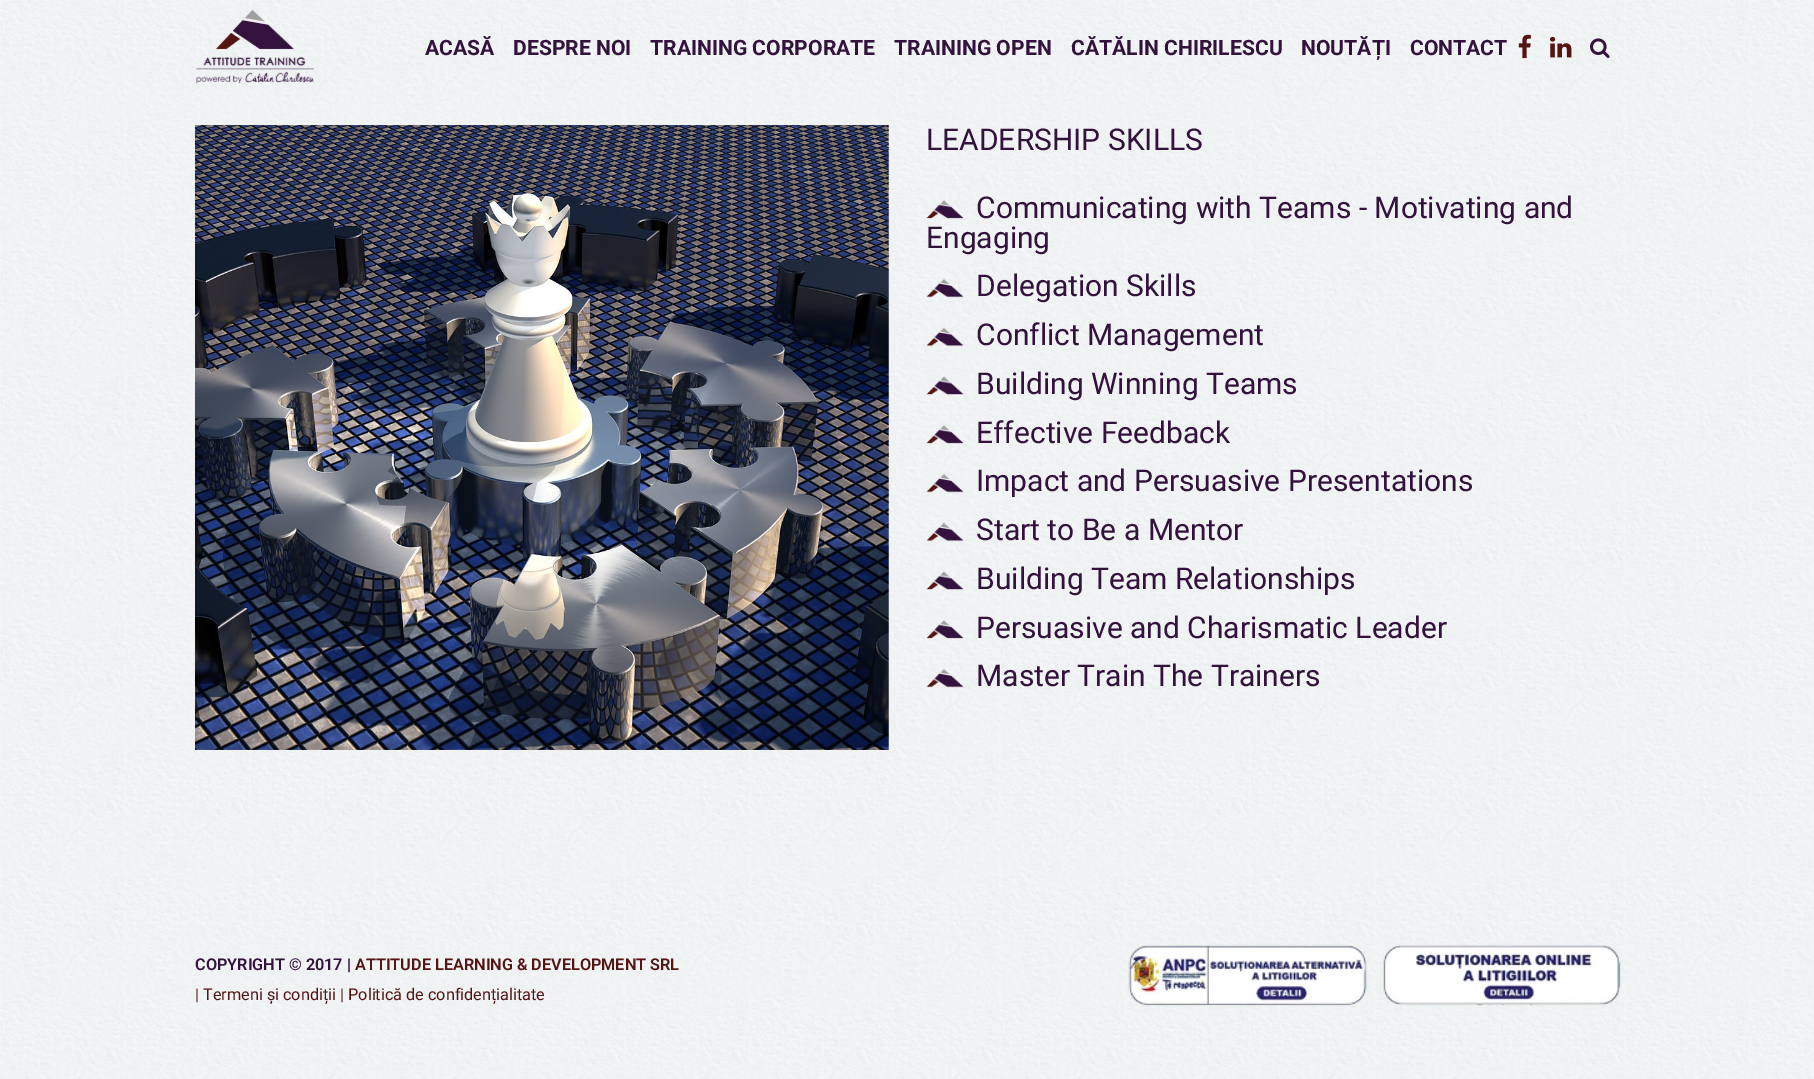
%!PS
<< /PageSize [1814 1079] >> setpagedevice
/C { dup -16 bitshift 255 div exch dup -8 bitshift 255 and 255 div exch 255 and 255 div setrgbcolor } def
/F { [ exch dup neg 0 0 3 -1 roll 0 0 ] selectfont } def
/T { moveto show } def
/R { rectfill } def
/I { 5 dict begin { /h /w /y /x /name } { exch def } forall
  gsave x y translate w h scale
  w h 8 [w 0 0 h 0 0] name (r) file false 3 colorimage grestore end } def
0 1079 translate 1 -1 scale
4 setmiterlimit
16#FFFFFF C
0 0 1814 1079 R
(1.rgb) 0 0 1814 1079 I
(2.rgb) 196 10 118 74 I
/Roboto-Bold 21.1 F
16#33133D C
(ACASĂ) 425 55 T
(DESPRE NOI) 513 55 T
(TRAINING CORPORATE) 650 55 T
(TRAINING OPEN) 894 55 T
(CĂTĂLIN CHIRILESCU) 1071 55 T
(NOUTĂȚI) 1301 55 T
(CONTACT) 1410 55 T
(3.rgb) 1518 34 13 25 I
(4.rgb) 1550 36 22 22 I
(5.rgb) 1590 38 20 20 I
(6.rgb) 195 125 694 625 I
/Roboto-Regular 30 F
(LEADERSHIP SKILLS) 926 150 T
(7.rgb) 926 200 38 19 I
(Communicating with Teams - Motivating and) 976 218 T
(Engaging) 926 248 T
(8.rgb) 926 278 38 20 I
(Delegation Skills) 976 296 T
(9.rgb) 926 327 38 20 I
(Conflict Management) 976 345 T
(10.rgb) 926 376 38 19 I
(Building Winning Teams) 976 394 T
(11.rgb) 926 425 38 19 I
(Effective Feedback) 976 443 T
(12.rgb) 926 473 38 20 I
(Impact and Persuasive Presentations) 976 491 T
(13.rgb) 926 522 38 20 I
(Start to Be a Mentor) 976 540 T
(14.rgb) 926 571 38 19 I
(Building Team Relationships) 976 589 T
(15.rgb) 926 620 38 19 I
(Persuasive and Charismatic Leader) 976 638 T
(16.rgb) 926 668 38 20 I
(Master Train The Trainers) 976 686 T
/Roboto-SemiBold 16.25 F
(COPYRIGHT © 2017 |) 195 970 T
16#531412 C
(ATTITUDE LEARNING & DEVELOPMENT SRL) 355 970 T
/Roboto-Regular 16.25 F
(| Termeni și condiții | Politică de confidențialitate) 195 1000 T
(17.rgb) 1128 945 239 61 I
(18.rgb) 1383 945 238 61 I
showpage
